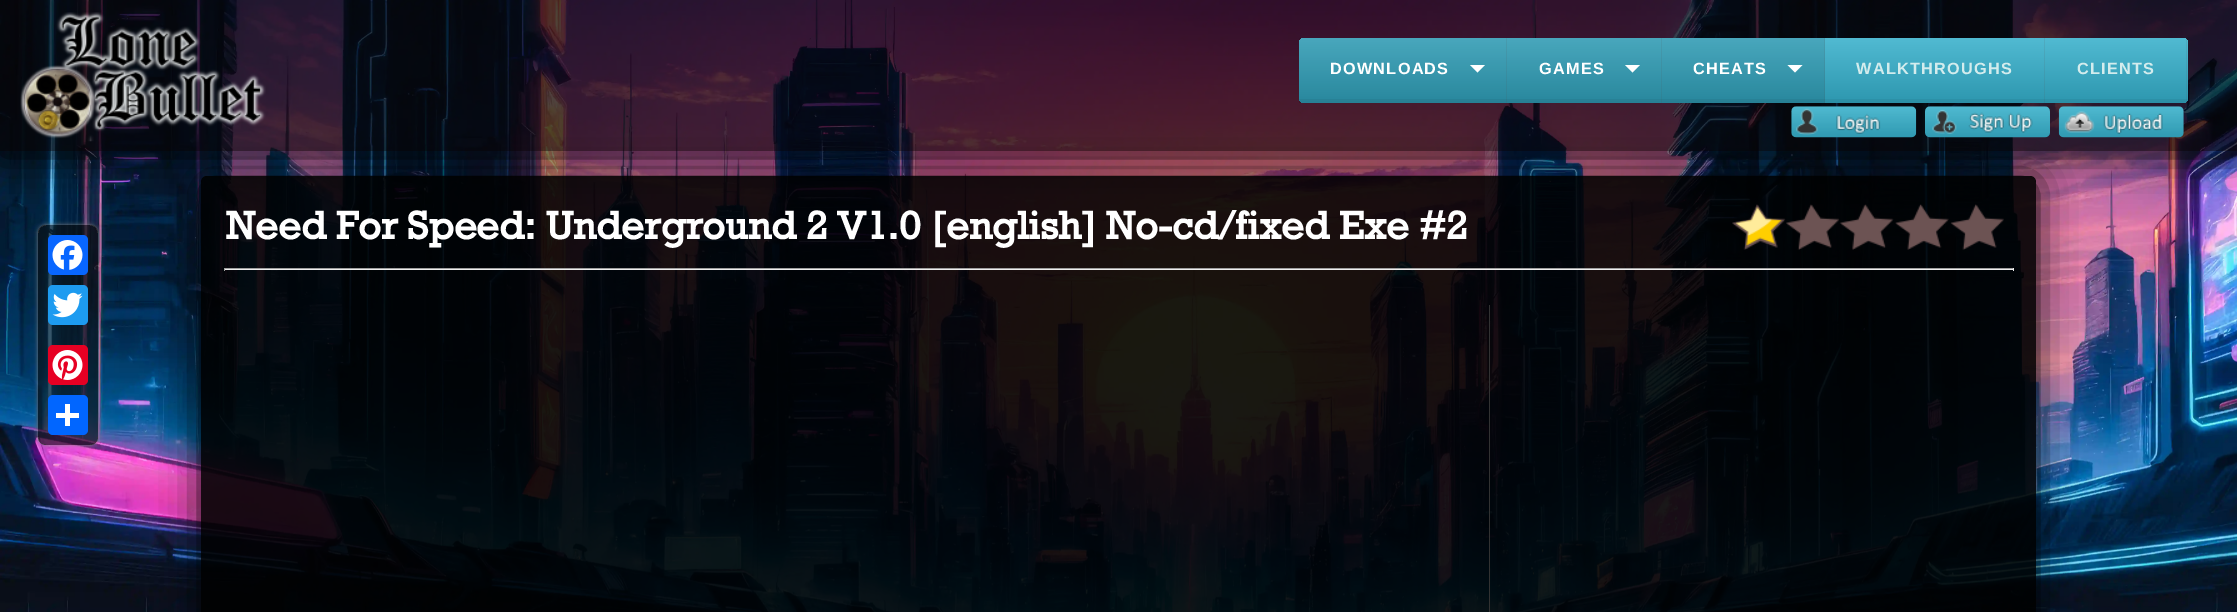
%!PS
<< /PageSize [2237 612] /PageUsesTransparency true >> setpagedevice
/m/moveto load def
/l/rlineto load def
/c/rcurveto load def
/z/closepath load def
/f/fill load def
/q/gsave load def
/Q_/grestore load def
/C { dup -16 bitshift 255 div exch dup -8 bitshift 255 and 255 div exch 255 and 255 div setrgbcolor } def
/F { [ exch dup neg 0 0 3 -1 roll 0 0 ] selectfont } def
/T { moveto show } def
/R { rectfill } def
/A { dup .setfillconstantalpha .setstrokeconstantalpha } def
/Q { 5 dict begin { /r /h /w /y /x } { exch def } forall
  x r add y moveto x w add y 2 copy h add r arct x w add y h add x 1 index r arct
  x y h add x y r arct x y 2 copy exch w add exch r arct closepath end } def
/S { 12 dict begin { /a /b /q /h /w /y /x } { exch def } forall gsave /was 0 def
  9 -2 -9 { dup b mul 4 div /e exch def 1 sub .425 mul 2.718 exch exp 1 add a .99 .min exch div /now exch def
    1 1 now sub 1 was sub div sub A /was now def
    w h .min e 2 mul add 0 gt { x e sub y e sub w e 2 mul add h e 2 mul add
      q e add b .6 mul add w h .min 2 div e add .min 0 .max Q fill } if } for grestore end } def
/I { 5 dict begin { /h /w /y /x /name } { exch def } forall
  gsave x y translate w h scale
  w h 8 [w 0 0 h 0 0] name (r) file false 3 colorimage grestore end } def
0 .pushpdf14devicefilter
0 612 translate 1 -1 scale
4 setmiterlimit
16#FFFFFF C
0 0 2237 612 R
(1.rgb) 0 0 2237 612 I
q
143 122 m 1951 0 l 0 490 l -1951 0 l z 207 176 m 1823 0 l 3.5 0 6 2.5 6 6 c 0 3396 l 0 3.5 -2.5 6 -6 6 c -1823 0 l -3.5 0 -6 -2.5 -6 -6 c 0 -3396 l 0 -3.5 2.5 -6 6 -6 c z eoclip newpath
16#000000 C
201 180 1835 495 6 19 1 S
Q_
0.9 A
16#000000 C
201 176 1835 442 6 Q f
1 A
(9.rgb) 1732 204 272 46 I
q
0 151 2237 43 rectclip
0 4 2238 151 0 19 1 S
Q_
0.7 A
16#050000 C
0 0 2237 151 R
1 A
(2.rgb) 20 12 246 130 I
q 1299 38 889 65 6 Q clip newpath
<< /ShadingType 2 /ColorSpace /DeviceRGB /Coords [1743 37 1743 103] /Extend [true true] /Function << /FunctionType 2 /Domain [0 1] /C0 [.318 .733 .824] /C1 [.176 .592 .686] /N 1 >> >> shfill Q_
0.05 A
16#000000 C
1299 99 889 4 R
0.1 A
1299 38 209 65 R
0.12 A
16#505050 C
1506 38 1 65 R
/LiberationSans-Bold 16.25 F
1 A
16#FFFFFF C
1330 74 m 1.25 0 (DOWNLOADS) ashow
1470 65 m 15 0 l -7.5 7.5 l z f
0.1 A
16#000000 C
1508 38 155 65 R
0.12 A
16#505050 C
1661 38 1 65 R
1 A
16#FFFFFF C
1539 74 m 1.25 0 (GAMES) ashow
1625 65 m 15 0 l -7.5 7.5 l z f
0.1 A
16#000000 C
1663 38 162 65 R
0.12 A
16#505050 C
1824 38 1 65 R
1 A
16#FFFFFF C
1693 74 m 1.25 0 (CHEATS) ashow
1787.5 65 m 15 0 l -7.5 7.5 l z f
0.12 A
16#505050 C
2044 38 1 65 R
1 A
16#D3ECED C
1856 74 m 1.25 0 (WALKTHROUGHS) ashow
0.12 A
16#505050 C
2186 38 1 65 R
1 A
16#D3ECED C
2077 74 m 1.25 0 (CLIENTS) ashow
(3.rgb) 1791 106 126 32 I
(4.rgb) 1925 106 125 32 I
(5.rgb) 2058 106 126 32 I
q
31 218 m 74 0 l 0 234 l -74 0 l z 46 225 m 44 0 l 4.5 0 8 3.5 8 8 c 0 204 l 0 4.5 -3.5 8 -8 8 c -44 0 l -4.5 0 -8 -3.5 -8 -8 c 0 -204 l 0 -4.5 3.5 -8 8 -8 c z eoclip newpath
16#808080 C
38 225 60 220 8 2 1 S
Q_
0.6 A
16#0A0A0A C
38 225 60 220 8 Q f
1 A
16#0866FF C
48 235 40 40 5 Q f
(6.rgb) 52 240 31 30 I
16#1D9BF0 C
48 285 40 40 5 Q f
(7.rgb) 52 292 31 26 I
16#E60023 C
48 345 40 40 5 Q f
(8.rgb) 52 350 31 30 I
16#0166FF C
48 395 40 40 5 Q f
16#FFFFFF C
65 404 5 22 R
56 413 23 5 R
/Rockwell-Bold 40 F
(Need For Speed: Underground 2 V1.0 [english] No-cd/fixed Exe #2) 226 239 T
16#9F9F9F C
224 268 1790 1 R
16#EEEEEE C
2013 268 1 3 R
224 269 1790 1 R
16#9F9F9F C
224 268 1 3 R
16#323232 C
1489 305 1 307 R
.poppdf14devicefilter showpage
